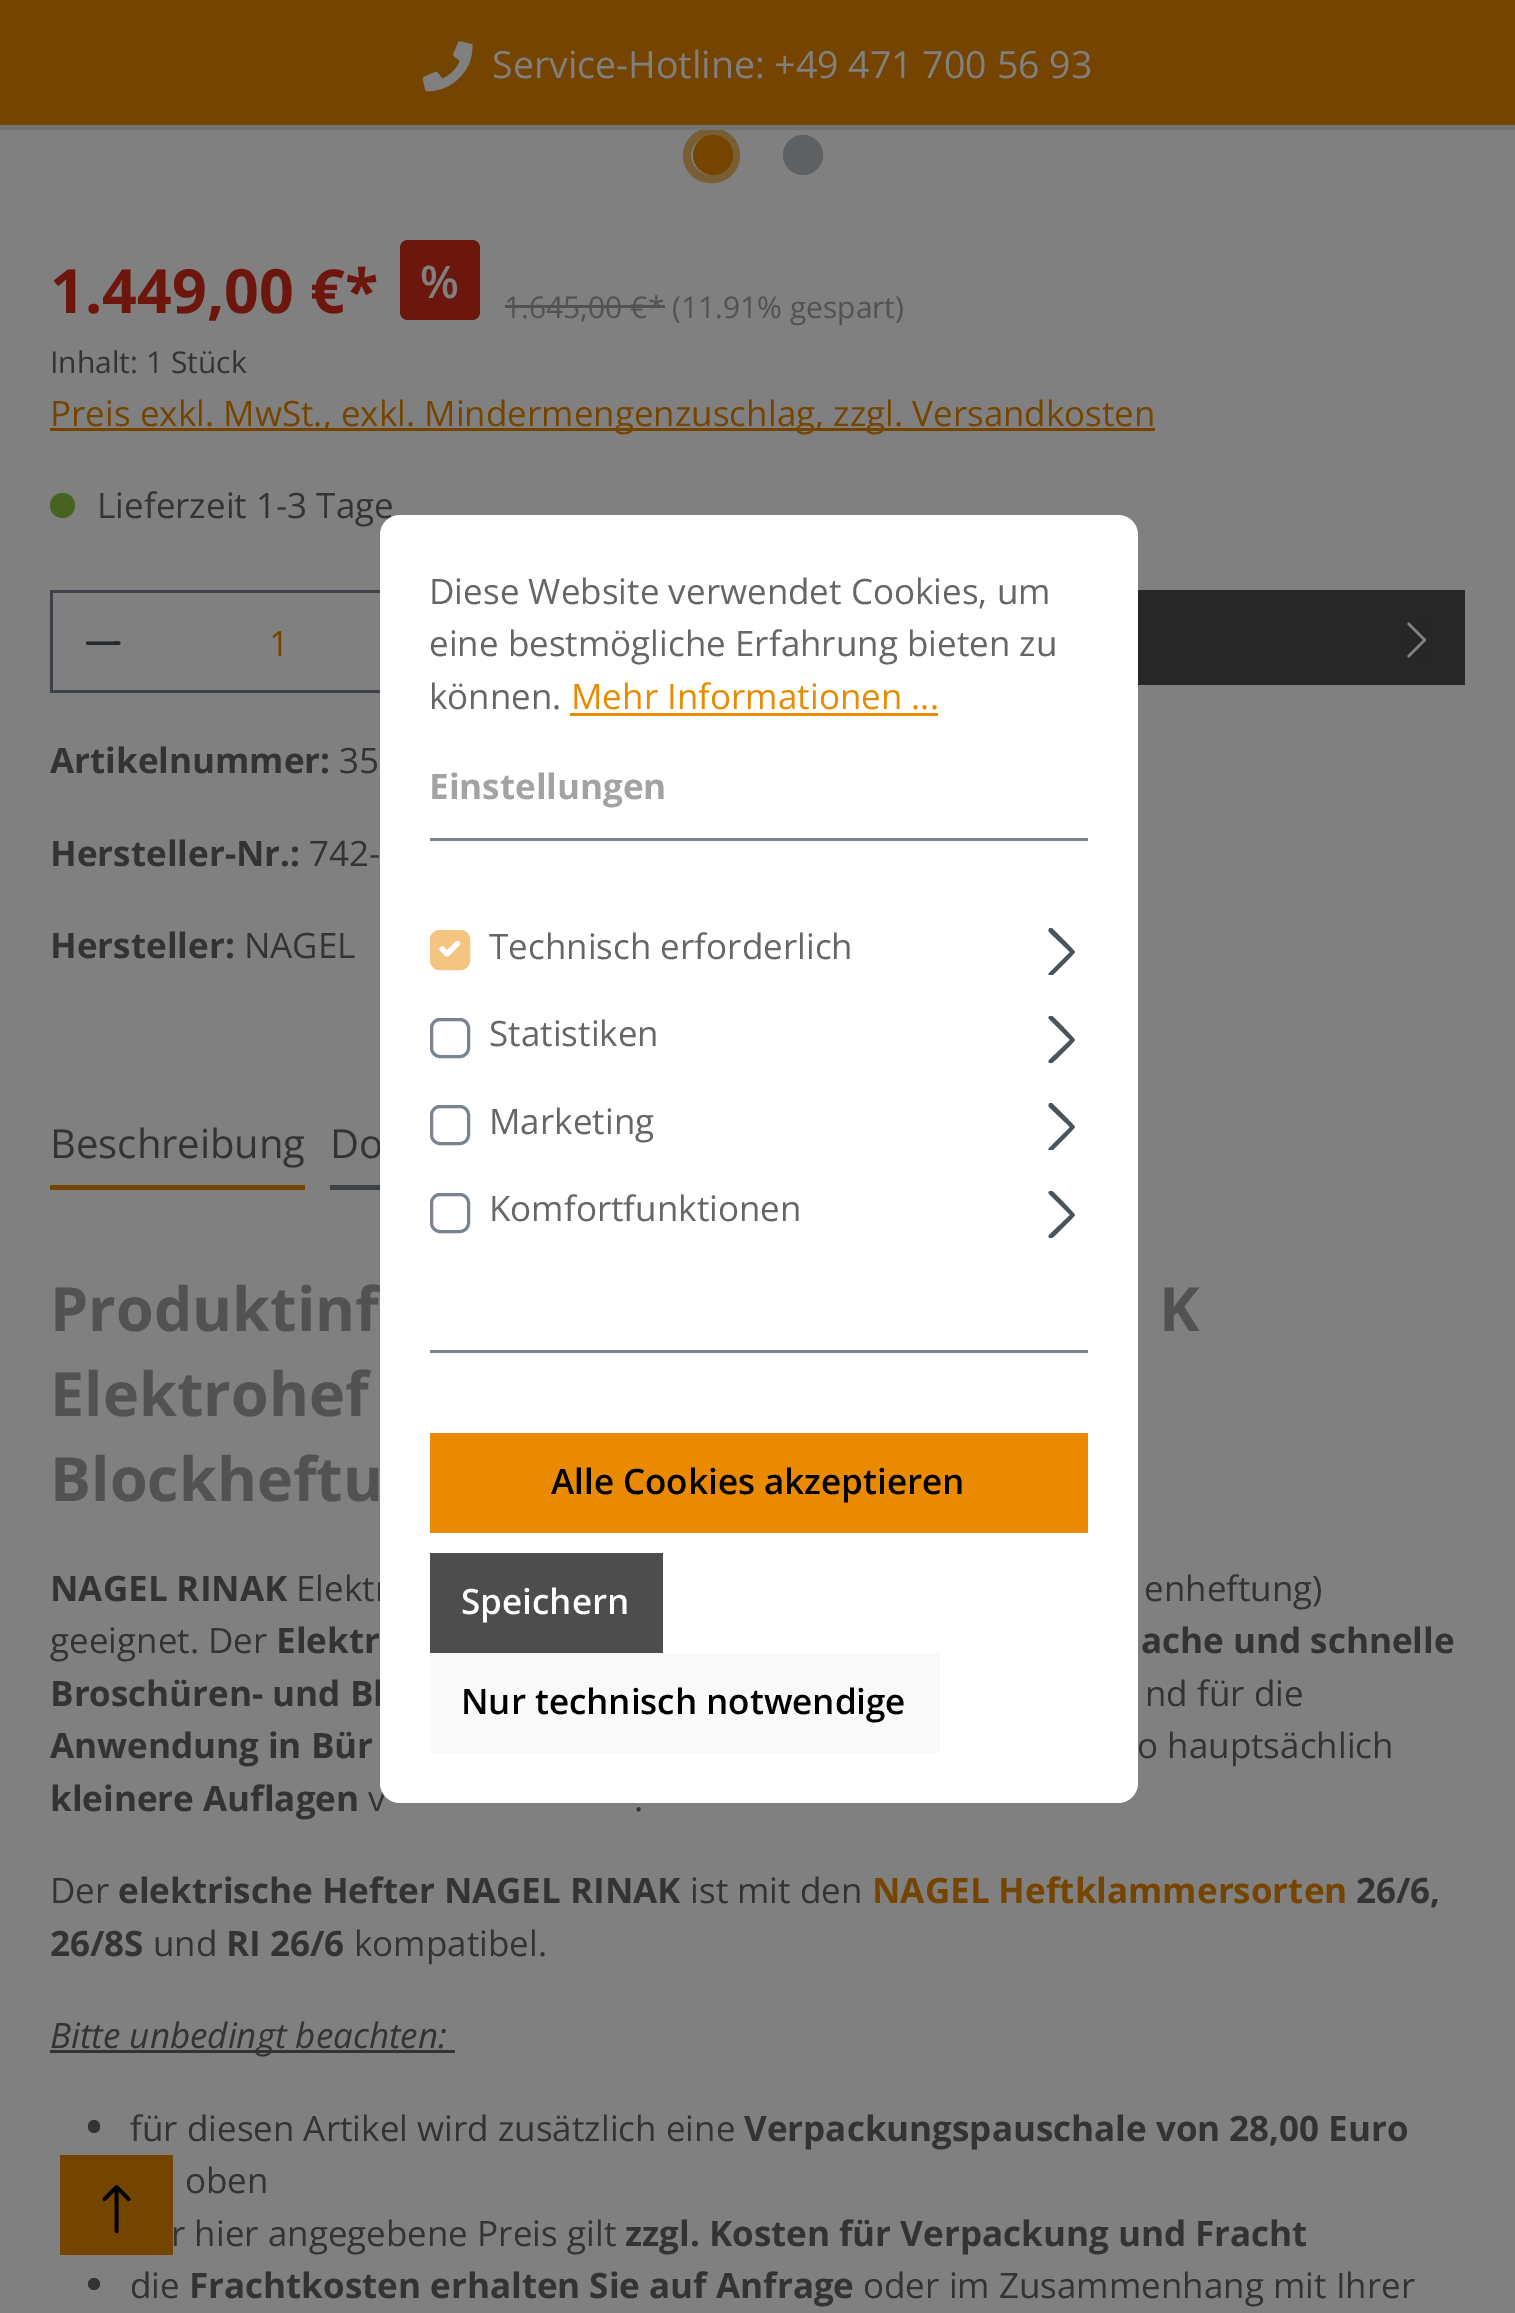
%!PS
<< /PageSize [1515 2313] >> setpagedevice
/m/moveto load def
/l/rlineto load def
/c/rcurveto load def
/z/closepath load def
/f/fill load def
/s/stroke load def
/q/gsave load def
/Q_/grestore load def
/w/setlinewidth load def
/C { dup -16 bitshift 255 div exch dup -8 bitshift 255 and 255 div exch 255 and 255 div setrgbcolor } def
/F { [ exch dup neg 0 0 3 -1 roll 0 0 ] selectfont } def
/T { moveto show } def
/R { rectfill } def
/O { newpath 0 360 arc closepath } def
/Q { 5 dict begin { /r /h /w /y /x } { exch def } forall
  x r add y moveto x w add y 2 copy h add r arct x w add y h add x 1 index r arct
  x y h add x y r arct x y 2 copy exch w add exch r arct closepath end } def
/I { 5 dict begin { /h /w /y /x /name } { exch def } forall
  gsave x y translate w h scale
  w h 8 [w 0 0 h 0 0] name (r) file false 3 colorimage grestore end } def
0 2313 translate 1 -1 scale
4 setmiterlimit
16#808080 C
0 0 1515 2313 R
16#754500 C
0 0 1515 125 R
16#795D33 C
8 w
687 132 49 47 23.5 Q s
16#737373 C
0 125 1515 5 R
(1.rgb) 422 41 51 51 I
/OpenSans-Regular 37.5 F
16#808080 C
(Service-Hotline: +49 471 700 56 93) 492 78 T
16#754500 C
713 155 20 O f
16#5E6164 C
803 155 20 O f
/OpenSans-Bold 61 F
16#6D160D C
(1.449,00 €*) 50 313 T
400 240 80 80 8 Q f
/OpenSans-SemiBold 45 F
16#808080 C
(%) 420 298 T
/OpenSans-Regular 30 F
16#525252 C
(1.645,00 €* \(11.91% gespart\)) 504 318 T
505 305 160 3 R
16#333333 C
(Inhalt: 1 Stück) 50 373 T
16#754500 C
50 428 1105 3 R
/OpenSans-Regular 35 F
(Preis exkl. MwSt., exkl. Mindermengenzuschlag, zzgl. Versandkosten) 50 426 T
16#466320 C
62.5 505.5 12.5 O f
16#333333 C
(Lieferzeit 1-3 Tage) 97 518 T
16#3D4248 C
50 590 330 3 R
50 690 330 3 R
50 590 3 103 R
16#252A2E C
87.5 645 m 31.5 0 l 1 -.5 l .5 -1.5 l -.5 -3 -6.5 -1.5 -7 -1.5 c -26.5 0 l -1 .5 -1.5 2 -.5 3 c z eofill
16#754500 C
(1) 269 656 T
16#272727 C
1138 590 327 95 R
(2.rgb) 1407 622 20 36 I
/OpenSans-Bold 35 F
16#333333 C
(Artikelnummer:) 50 773 T
/OpenSans-Regular 35 F
(35) 339 773 T
/OpenSans-Bold 35 F
(Hersteller-Nr.:) 50 866 T
/OpenSans-Regular 35 F
(742-) 309 866 T
/OpenSans-Bold 35 F
(Hersteller:) 50 958 T
/OpenSans-Regular 35 F
(NAGEL) 244 958 T
16#754500 C
50 1185 255 5 R
/OpenSans-Regular 40 F
16#333333 C
(Beschreibung) 50 1158 T
16#3D4248 C
330 1185 50 5 R
16#333333 C
(Do) 330 1158 T
/OpenSans-Bold 61 F
16#525252 C
(Produktinf) 50 1331 T
(K) 1159 1331 T
(Elektrohef) 50 1416 T
(Blockheftu) 50 1501 T
/OpenSans-Bold 35 F
16#333333 C
(NAGEL RINAK) 50 1601 T
/OpenSans-Regular 35 F
(Elektr) 296 1601 T
(enheftung\)) 1144 1601 T
(geeignet. Der) 50 1653 T
/OpenSans-Bold 35 F
(Elektr) 276 1653 T
(ache und schnelle) 1141 1653 T
(Broschüren- und Bl) 50 1706 T
/OpenSans-Regular 35 F
(nd für die) 1145 1706 T
/OpenSans-Bold 35 F
(Anwendung in Bür) 50 1758 T
/OpenSans-Regular 35 F
(o hauptsächlich) 1137 1758 T
/OpenSans-Bold 35 F
(kleinere Auflagen) 50 1811 T
/OpenSans-Regular 35 F
(v) 368 1811 T
(.) 634 1811 T
(Der) 50 1903 T
/OpenSans-Bold 35 F
(elektrische Hefter NAGEL RINAK) 118 1903 T
/OpenSans-Regular 35 F
(ist mit den) 690 1903 T
/OpenSans-Bold 35 F
16#754500 C
(NAGEL Heftklammersorten) 872 1903 T
16#333333 C
(26/6,) 1356 1903 T
(26/8S) 50 1956 T
/OpenSans-Regular 35 F
(und) 153 1956 T
/OpenSans-Bold 35 F
(RI 26/6) 226 1956 T
/OpenSans-Regular 35 F
(kompatibel.) 354 1956 T
50 2050 405 3 R
/OpenSans-Italic 35 F
(Bitte unbedingt beachten:) 50 2048 T
88 2120 12 13 6 Q f
/OpenSans-Regular 35 F
(für diesen Artikel wird zusätzlich eine) 130 2141 T
/OpenSans-Bold 35 F
(Verpackungspauschale von 28,00 Euro) 744 2141 T
/OpenSans-Regular 35 F
(oben) 185 2193 T
(r hier angegebene Preis gilt) 171 2246 T
/OpenSans-Bold 35 F
(zzgl. Kosten für Verpackung und Fracht) 625 2246 T
94 2284 6 O f
/OpenSans-Regular 35 F
(die) 130 2298 T
/OpenSans-Bold 35 F
(Frachtkosten erhalten Sie auf Anfrage) 189 2298 T
/OpenSans-Regular 35 F
(oder im Zusammenhang mit Ihrer) 863 2298 T
16#FFFFFF C
380 515 758 1288 20 Q f
16#798490 C
430 838 658 3 R
16#666666 C
(Diese Website verwendet Cookies, um) 429 604 T
(eine bestmögliche Erfahrung bieten zu) 429 656 T
(können.) 429 709 T
16#E98A00 C
(Mehr Informationen ...) 571 709 T
570 713 368 3 R
/OpenSans-Bold 35 F
16#A3A3A3 C
(Einstellungen) 429 799 T
16#798490 C
430 1350 658 3 R
16#F4C580 C
430 930 40 40 10 Q f
16#FFFFFF C
5.2 w
1 setlinecap
1 setlinejoin
442 949 m 5 5 l 10.5 -10.5 l s
16#F4C580 C
3 w
0 setlinecap
0 setlinejoin
431.5 931.5 37 37 8.5 Q s
/OpenSans-Regular 35 F
16#666666 C
(Technisch erforderlich) 489 959 T
q
1040 928 48 47 rectclip
16#4A545B C
1070 952 m -21 21 l -1 1 0 3 1 3 c 2 0 l 2 -2 23 -23 23 -24 c 0 -1 -21 -22 -23 -24 c -2 0 l -1 0 -2 2 -1 4 c z eofill
Q_
16#798490 C
431.5 1019.5 37 37 8.5 Q s
16#666666 C
(Statistiken) 489 1046 T
q
1040 1015 48 48 rectclip
16#4A545B C
1070 1040 m -21 20 l -1 1 0 3 1 4 c 2 -1 l 2 -1 23 -22 23 -23 c 0 -1 -21 -23 -23 -24 c -2 0 l -1 0 -2 2 -1 3 c z eofill
Q_
16#798490 C
431.5 1106.5 37 37 8.5 Q s
16#666666 C
(Marketing) 489 1134 T
q
1040 1103 48 47 rectclip
16#4A545B C
1070 1127 m -21 21 l -1 1 0 3 1 3 c 2 0 l 2 -2 23 -23 23 -24 c 0 -1 -21 -22 -23 -24 c -2 0 l -1 0 -2 2 -1 4 c z eofill
Q_
16#798490 C
431.5 1194.5 37 37 8.5 Q s
16#666666 C
(Komfortfunktionen) 489 1221 T
q
1040 1190 48 48 rectclip
16#4A545B C
1070 1215 m -21 20 l -1 1 0 3 1 4 c 2 -1 l 2 -1 23 -22 23 -23 c 0 -1 -21 -23 -23 -24 c -2 0 l -1 0 -2 2 -1 3 c z eofill
Q_
16#E98A00 C
430 1433 658 100 R
/OpenSans-SemiBold 35 F
16#000000 C
(Alle Cookies akzeptieren) 551 1494 T
16#4D4D4D C
430 1553 233 100 R
16#FFFFFF C
(Speichern) 461 1614 T
16#F9F9F9 C
430 1653 510 100 R
16#000000 C
(Nur technisch notwendige) 461 1714 T
16#754500 C
60 2155 113 100 R
(3.rgb) 102 2185 29 48 I
showpage
